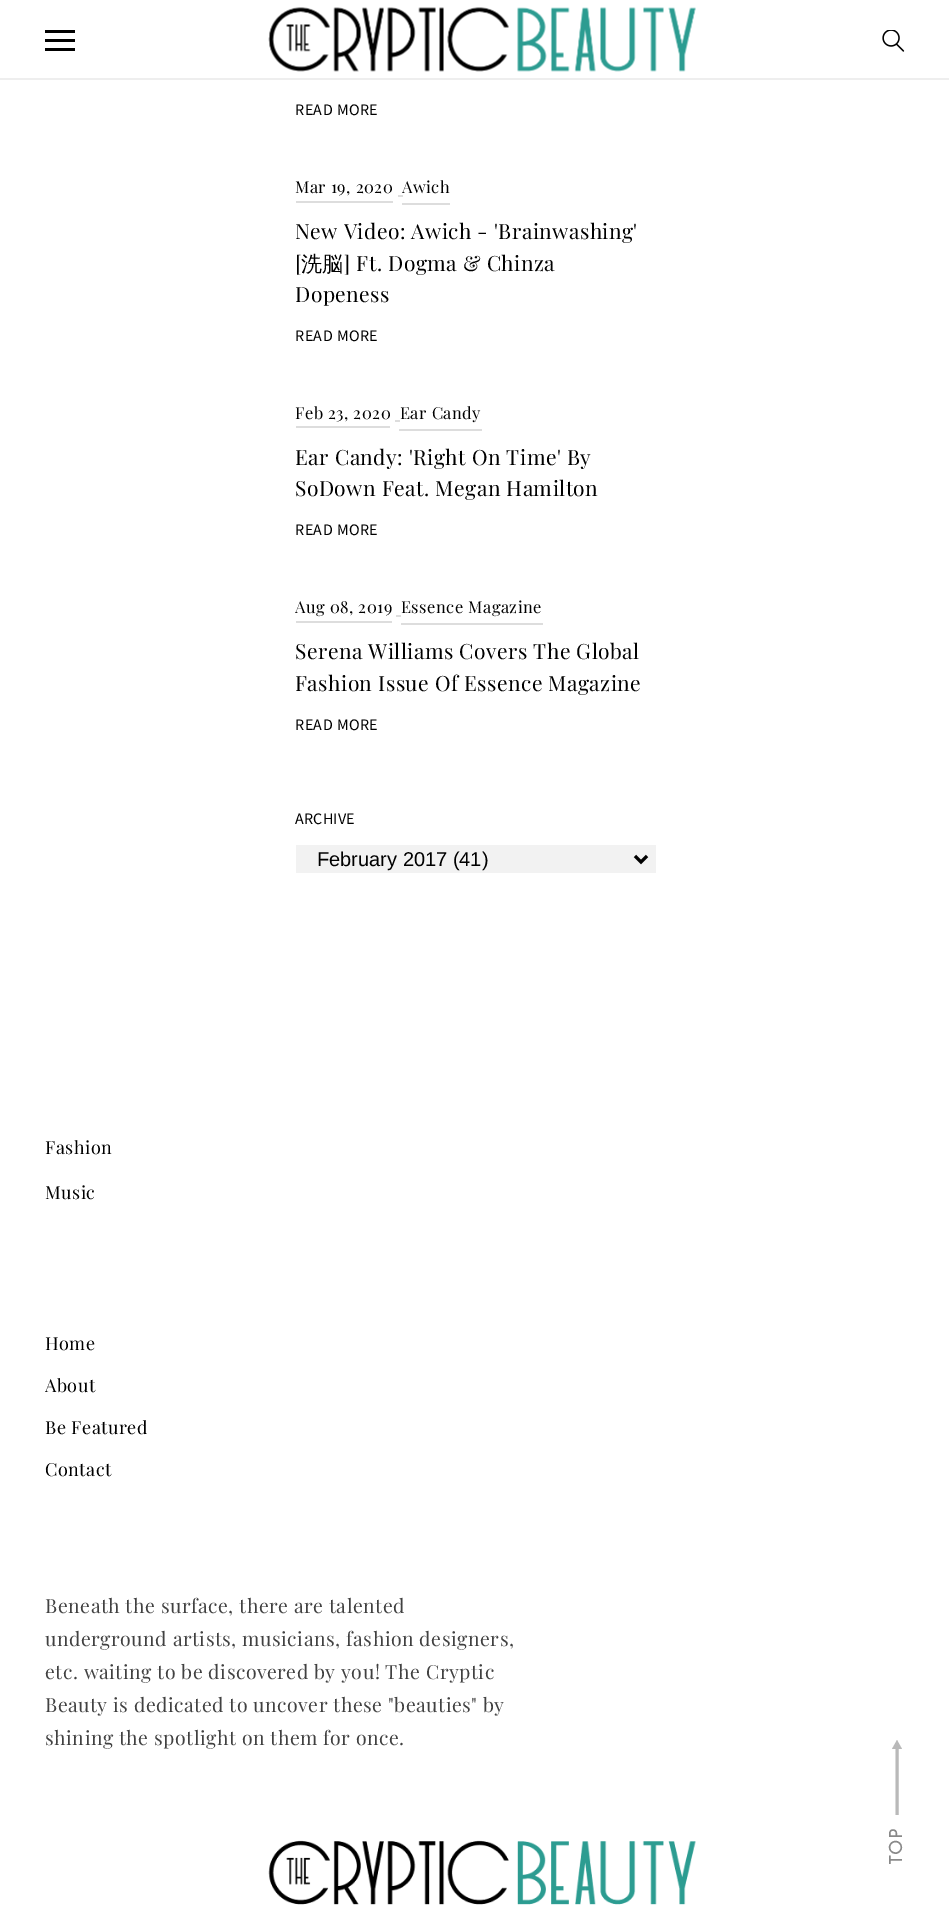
%!PS
<< /PageSize [949 1915] >> setpagedevice
/m/moveto load def
/l/rlineto load def
/z/closepath load def
/f/fill load def
/s/stroke load def
/q/gsave load def
/Q_/grestore load def
/w/setlinewidth load def
/C { dup -16 bitshift 255 div exch dup -8 bitshift 255 and 255 div exch 255 and 255 div setrgbcolor } def
/F { [ exch dup neg 0 0 3 -1 roll 0 0 ] selectfont } def
/T { moveto show } def
/R { rectfill } def
/I { 5 dict begin { /h /w /y /x /name } { exch def } forall
  gsave x y translate w h scale
  w h 8 [w 0 0 h 0 0] name (r) file false 3 colorimage grestore end } def
0 1915 translate 1 -1 scale
4 setmiterlimit
16#FFFFFF C
0 0 949 1915 R
16#EEEEEE C
0 78 949 2 R
16#000000 C
45 30 30 3 R
45 39 30 3 R
45 48 30 3 R
(1.rgb) 268 7 428 65 I
(2.rgb) 882 30 23 22 I
/SourceSansPro-Regular 16 F
295 115 m .45 0 (READ MORE) ashow
/PlayfairDisplay-Regular 16.5 F
295 193 m .45 0 (Mar 19, 2020) ashow
16#DDDDDD C
296 201 97 2 R
398 195 5 2 R
402 203 48 2 R
16#000000 C
402 193 m .45 0 (Awich) ashow
/PlayfairDisplay-Regular 21 F
295 239 m .45 0 (New Video: Awich - 'Brainwashing') ashow
295 271 m .45 0 ([) ashow
/WenQuanYiZenHei-Medium 21 F
301 271 m .45 0 (洗脳) ashow
/PlayfairDisplay-Regular 21 F
344 271 m .45 0 (] Ft. Dogma & Chinza) ashow
295 302 m .45 0 (Dopeness) ashow
/SourceSansPro-Regular 16 F
295 341 m .45 0 (READ MORE) ashow
/PlayfairDisplay-Regular 16.5 F
295 419 m .45 0 (Feb 23, 2020) ashow
16#DDDDDD C
296 426 94 2 R
395 420 5 2 R
399 429 83 2 R
16#000000 C
400 419 m .45 0 (Ear Candy) ashow
/PlayfairDisplay-Regular 21 F
295 465 m .45 0 (Ear Candy: 'Right On Time' By) ashow
295 496 m .45 0 (SoDown Feat. Megan Hamilton) ashow
/SourceSansPro-Regular 16 F
295 535 m .45 0 (READ MORE) ashow
/PlayfairDisplay-Regular 16.5 F
295 613 m .45 0 (Aug 08, 2019) ashow
16#DDDDDD C
296 621 96 2 R
396 615 5 2 R
401 623 142 2 R
16#000000 C
401 613 m .45 0 (Essence Magazine) ashow
/PlayfairDisplay-Regular 21 F
295 659 m .45 0 (Serena Williams Covers The Global) ashow
295 691 m .45 0 (Fashion Issue Of Essence Magazine) ashow
/SourceSansPro-Regular 16 F
295 730 m .45 0 (READ MORE) ashow
295 824 m .25 0 (ARCHIVE) ashow
16#F2F2F2 C
296 845 360 28 R
16#000000 C
3 w
635 856 m 6 6 l 6 -6 l s
/LiberationSans-Regular 20 F
(February 2017 \(41\)) 317 866 T
/PlayfairDisplay-Regular 18 F
45 1154 m .5 0 (Fashion) ashow
45 1199 m .5 0 (Music) ashow
45 1350 m .5 0 (Home) ashow
45 1392 m .5 0 (About) ashow
45 1434 m .5 0 (Be Featured) ashow
45 1476 m .5 0 (Contact) ashow
/PlayfairDisplay-Regular 19.5 F
16#414141 C
45 1613 m .5 0 (Beneath the surface, there are talented) ashow
45 1646 m .5 0 (underground artists, musicians, fashion designers,) ashow
45 1679 m .5 0 (etc. waiting to be discovered by you! The Cryptic) ashow
45 1712 m .5 0 (Beauty is dedicated to uncover these "beauties" by) ashow
45 1745 m .5 0 (shining the spotlight on them for once.) ashow
(3.rgb) 268 1840 428 65 I
16#B9B9B9 C
897 1740 m -5 9 l 10 0 l z f
897 1749 m 0 66 l s
/JosefinSans-Regular 18 F
16#898989 C
q 902 1865 translate -90 rotate 0 0 m (TOP) show Q_
showpage
